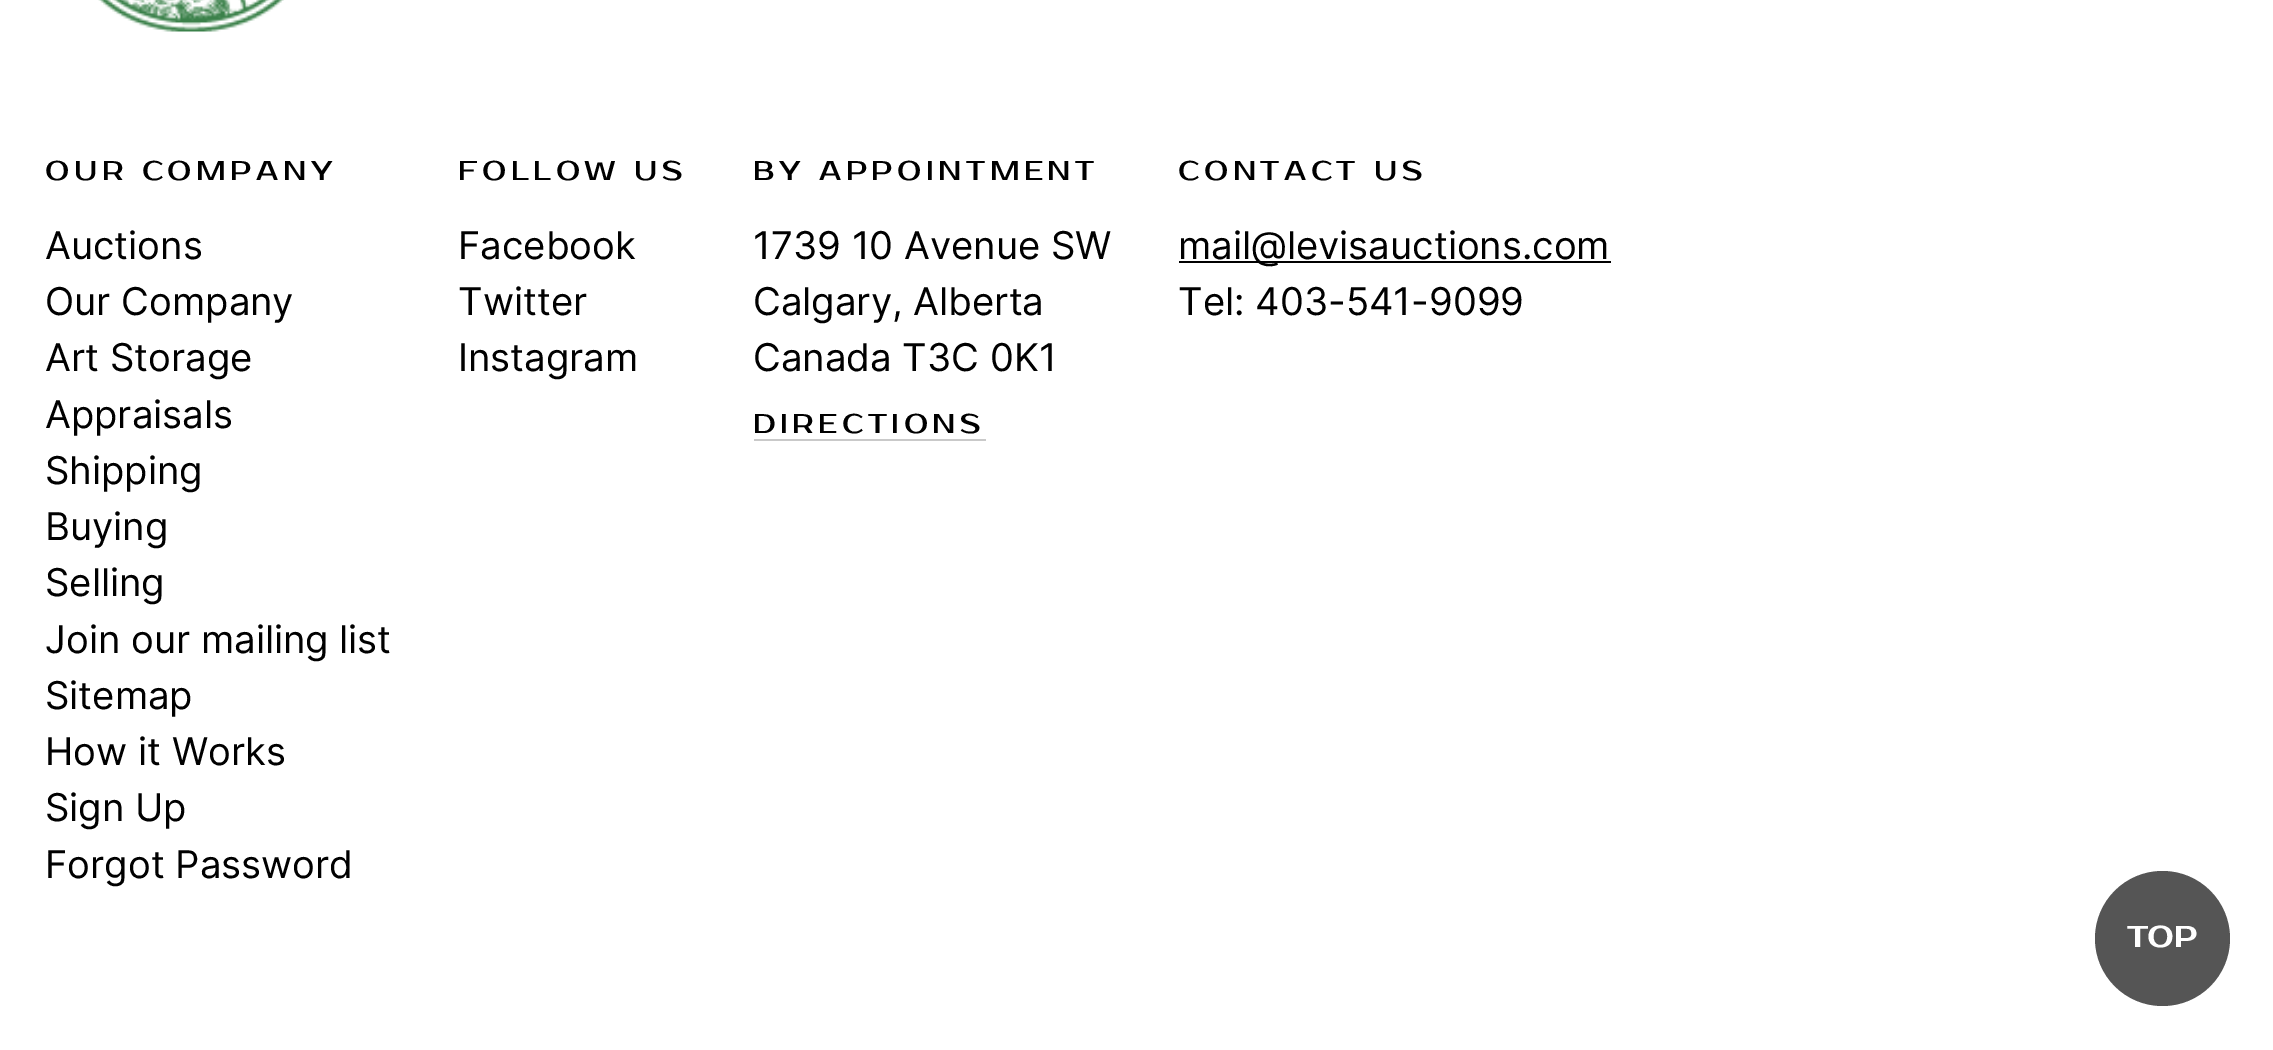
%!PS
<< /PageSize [2273 1050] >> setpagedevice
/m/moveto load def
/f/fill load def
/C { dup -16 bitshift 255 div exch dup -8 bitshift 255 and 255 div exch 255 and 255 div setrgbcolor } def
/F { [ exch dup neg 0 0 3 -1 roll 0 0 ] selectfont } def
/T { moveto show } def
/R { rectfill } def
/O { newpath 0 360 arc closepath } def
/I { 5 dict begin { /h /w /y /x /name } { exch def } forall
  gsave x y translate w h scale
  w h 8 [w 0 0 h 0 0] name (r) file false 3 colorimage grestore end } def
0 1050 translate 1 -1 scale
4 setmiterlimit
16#FFFFFF C
0 0 2273 1050 R
(1.rgb) 98 0 186 32 I
/ProstoOne-Regular 27 F
16#000000 C
45 180 m 4.5 0 (OUR COMPANY) ashow
/Inter-Regular 38.25 F
(Auctions) 45 259 T
(Our Company) 45 315 T
(Art Storage) 45 371 T
(Appraisals) 45 428 T
(Shipping) 45 484 T
(Buying) 45 540 T
(Selling) 45 596 T
(Join our mailing list) 45 653 T
(Sitemap) 45 709 T
(How it Works) 45 765 T
(Sign Up) 45 821 T
(Forgot Password) 45 878 T
/ProstoOne-Regular 27 F
458 180 m 4.5 0 (FOLLOW US) ashow
/Inter-Regular 38.25 F
(Facebook) 458 259 T
(Twitter) 458 315 T
(Instagram) 458 371 T
/ProstoOne-Regular 27 F
753 180 m 4.5 0 (BY APPOINTMENT) ashow
/Inter-Regular 38.25 F
(1739 10 Avenue SW) 753 259 T
(Calgary, Alberta) 753 315 T
(Canada T3C 0K1) 753 371 T
16#C9C9C9 C
754 439 232 2 R
/ProstoOne-Regular 27 F
16#000000 C
753 433 m 4.5 0 (DIRECTIONS) ashow
1178 180 m 4.5 0 (CONTACT US) ashow
1179 261 432 2 R
/Inter-Regular 38.25 F
(mail@levisauctions.com) 1178 259 T
(Tel: 403-541-9099) 1178 315 T
16#555555 C
2162.5 938.5 67.5 O f
/ProstoOne-Bold 29 F
16#FFFFFF C
(TOP) 2127 947 T
showpage
